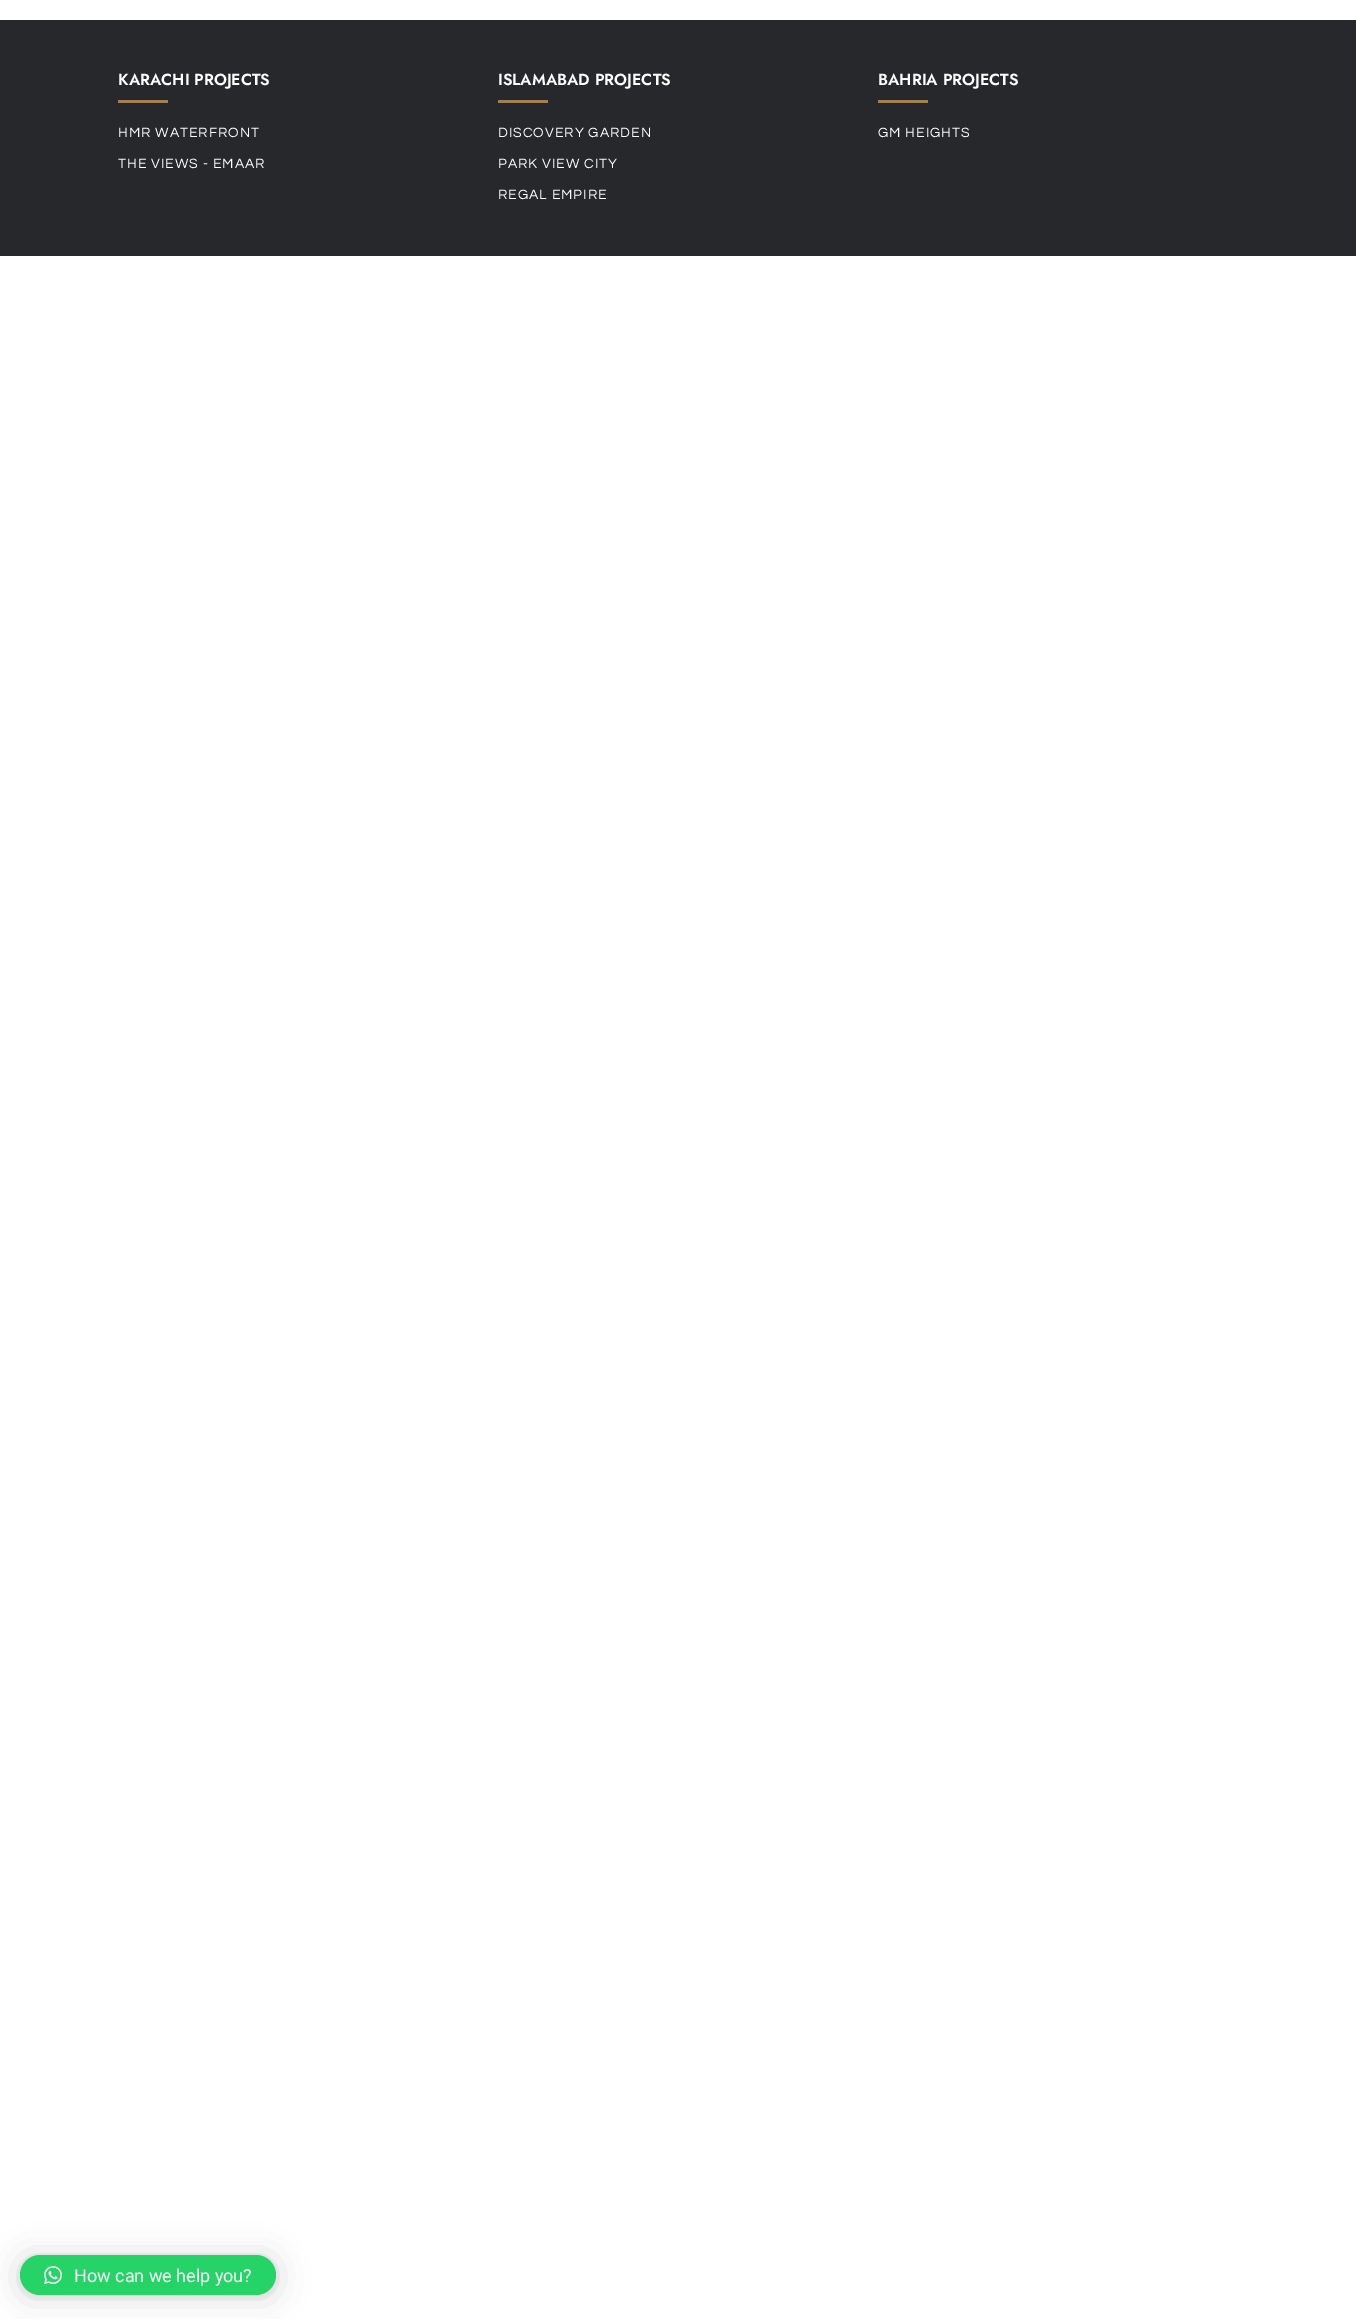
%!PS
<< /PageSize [1356 2319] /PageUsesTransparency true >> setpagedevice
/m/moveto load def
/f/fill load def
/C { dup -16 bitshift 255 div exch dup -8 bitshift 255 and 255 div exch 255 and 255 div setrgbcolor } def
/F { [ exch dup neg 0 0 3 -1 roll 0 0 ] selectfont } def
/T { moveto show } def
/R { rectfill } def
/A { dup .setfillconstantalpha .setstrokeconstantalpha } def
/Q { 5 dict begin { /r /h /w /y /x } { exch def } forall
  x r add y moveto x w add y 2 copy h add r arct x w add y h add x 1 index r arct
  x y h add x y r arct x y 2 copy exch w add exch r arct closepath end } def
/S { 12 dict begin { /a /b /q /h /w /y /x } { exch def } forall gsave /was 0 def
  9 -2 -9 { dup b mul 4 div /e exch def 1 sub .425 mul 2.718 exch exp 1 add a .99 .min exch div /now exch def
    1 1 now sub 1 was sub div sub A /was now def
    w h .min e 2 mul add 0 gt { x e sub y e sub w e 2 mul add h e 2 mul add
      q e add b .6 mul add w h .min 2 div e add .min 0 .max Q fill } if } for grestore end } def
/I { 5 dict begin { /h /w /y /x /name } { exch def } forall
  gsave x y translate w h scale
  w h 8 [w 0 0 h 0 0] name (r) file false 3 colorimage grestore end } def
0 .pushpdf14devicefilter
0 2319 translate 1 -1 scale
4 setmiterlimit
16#FFFFFF C
0 0 1356 2319 R
16#26282B C
0 20 1356 236 R
/Jost-SemiBold 16 F
16#FFFFFF C
(KARACHI PROJECTS) 118 85 T
16#9F8054 C
118 100 50 3 R
/Questrial-Regular 14 F
16#FFFFFF C
118 137 m 1 0 (HMR WATERFRONT) ashow
118 168 m 1 0 (THE VIEWS - EMAAR) ashow
/Jost-SemiBold 16 F
(ISLAMABAD PROJECTS) 498 85 T
16#9F8054 C
498 100 50 3 R
/Questrial-Regular 14 F
16#FFFFFF C
498 137 m 1 0 (DISCOVERY GARDEN) ashow
498 168 m 1 0 (PARK VIEW CITY) ashow
498 199 m 1 0 (REGAL EMPIRE) ashow
/Jost-SemiBold 16 F
(BAHRIA PROJECTS) 878 85 T
16#9F8054 C
878 100 50 3 R
/Questrial-Regular 14 F
16#FFFFFF C
878 137 m 1 0 (GM HEIGHTS) ashow
16#000000 C
20 2257 256 40 20 16 .16 S
20 2256 256 40 20 3 .06 S
16#25D366 C
20 2255 256 40 20 Q f
(1.rgb) 44 2266 18 19 I
/Roboto-Regular 18 F
16#FFFFFF C
(How can we help you?) 74 2282 T
.poppdf14devicefilter showpage
